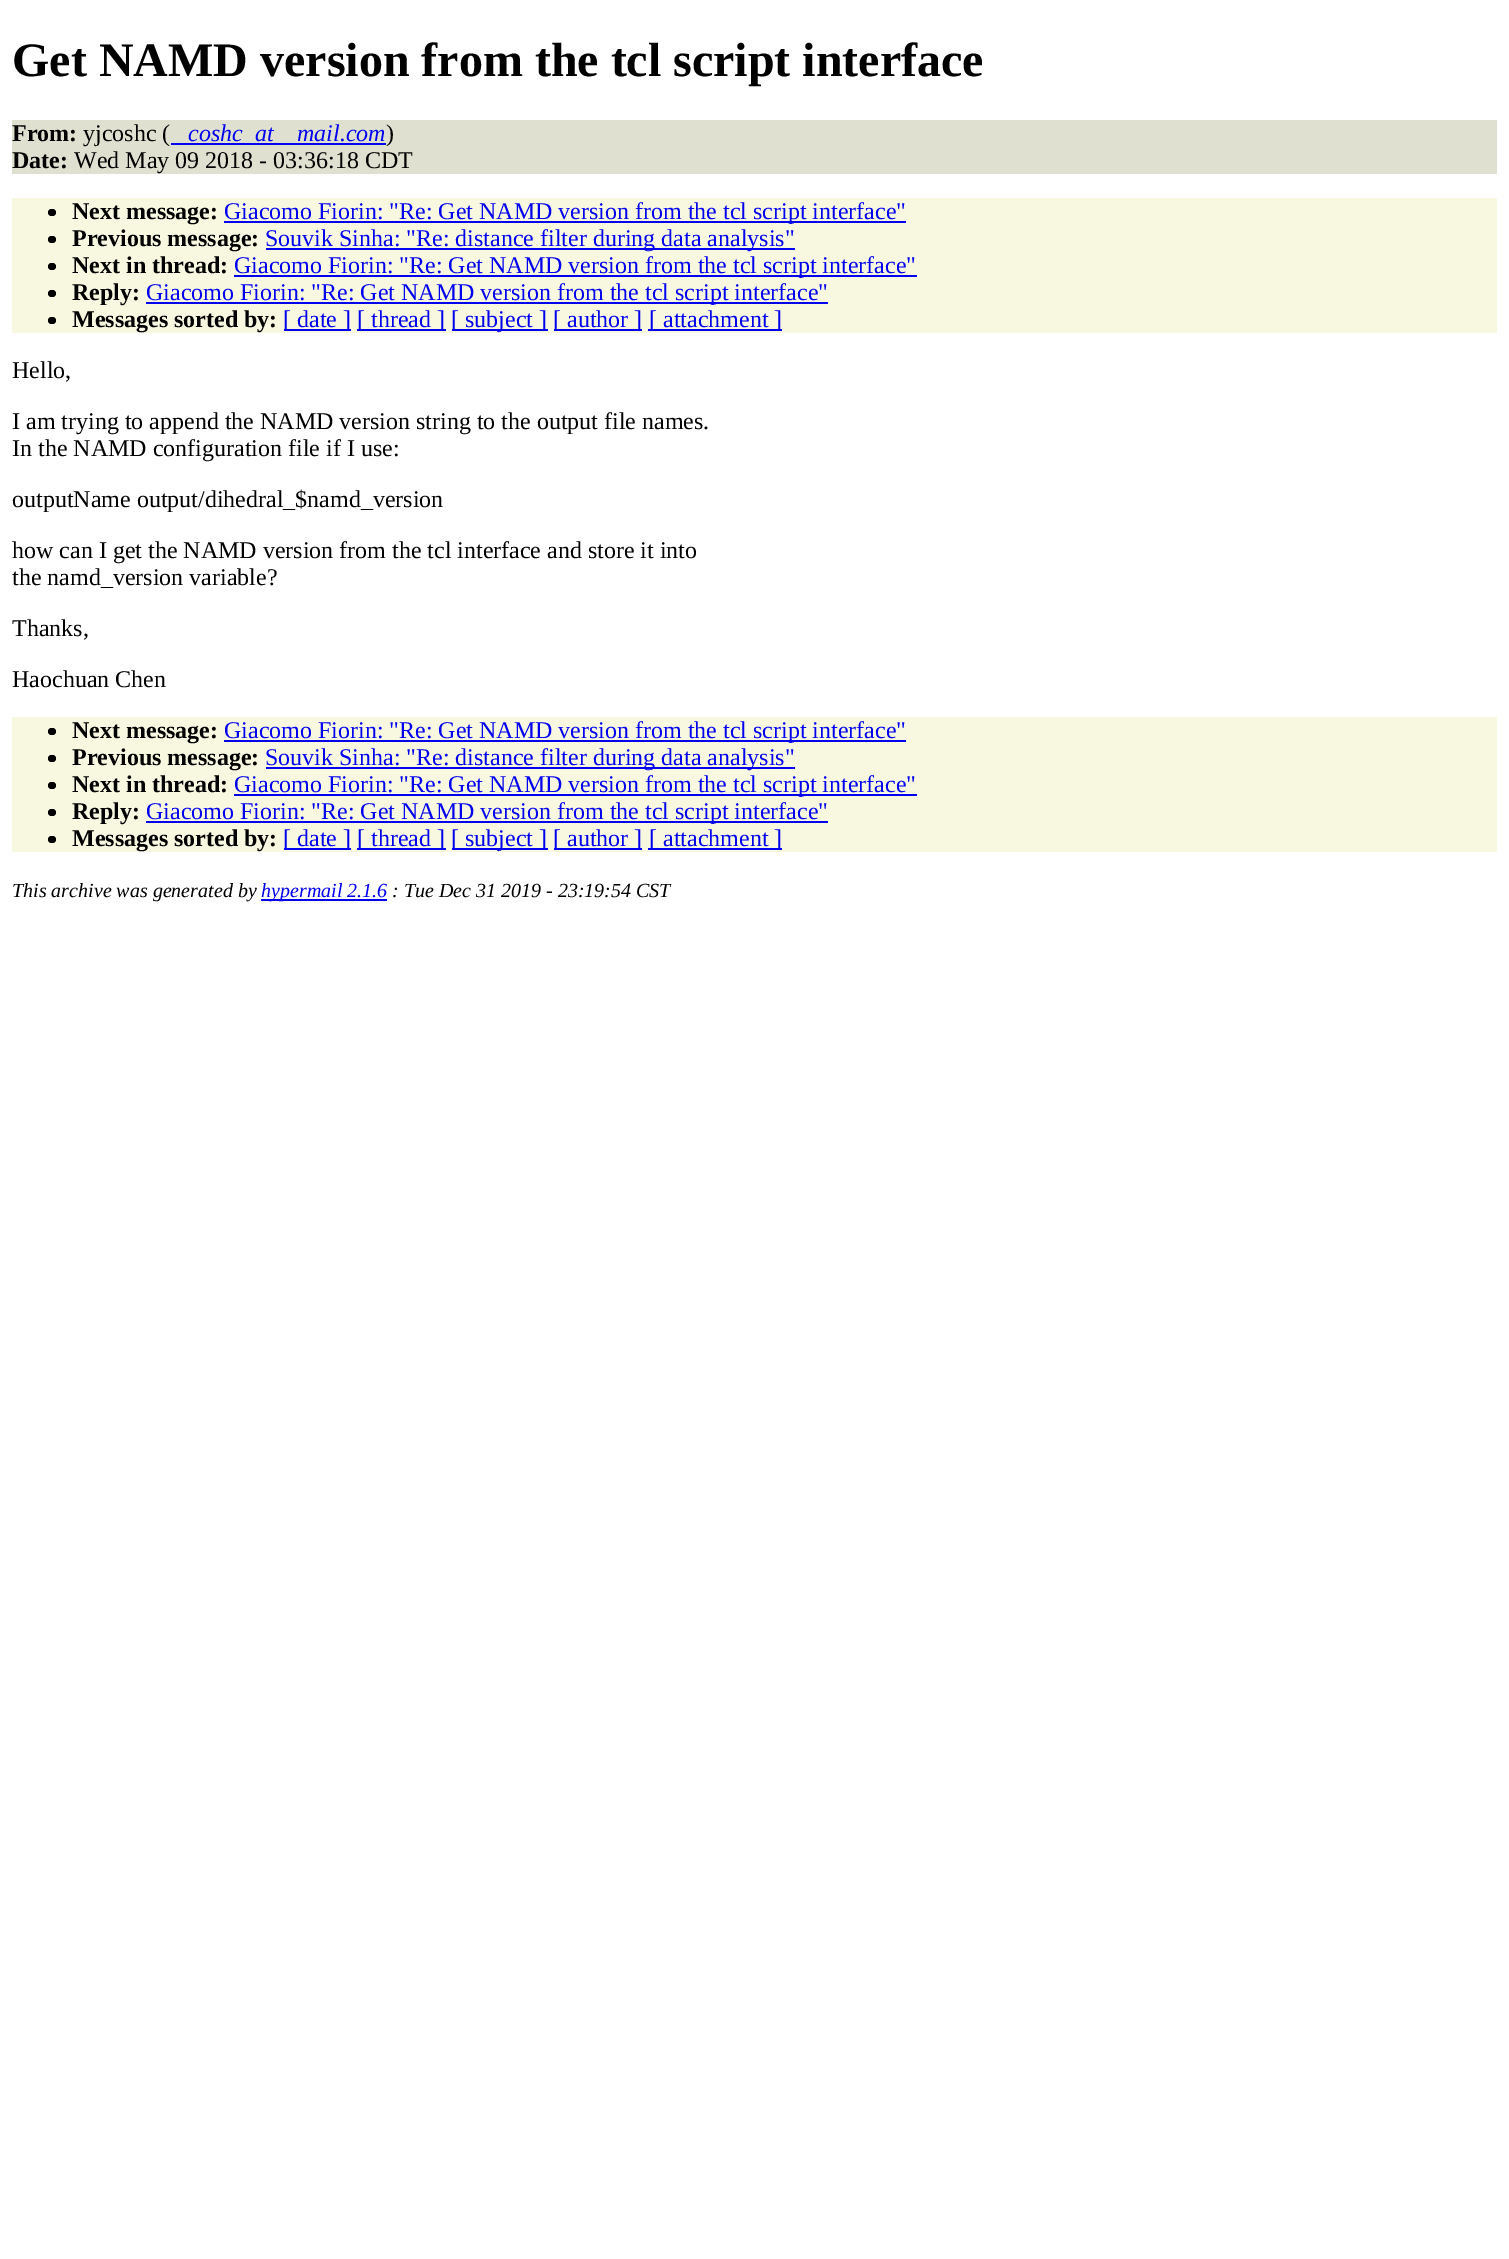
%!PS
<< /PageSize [1509 2259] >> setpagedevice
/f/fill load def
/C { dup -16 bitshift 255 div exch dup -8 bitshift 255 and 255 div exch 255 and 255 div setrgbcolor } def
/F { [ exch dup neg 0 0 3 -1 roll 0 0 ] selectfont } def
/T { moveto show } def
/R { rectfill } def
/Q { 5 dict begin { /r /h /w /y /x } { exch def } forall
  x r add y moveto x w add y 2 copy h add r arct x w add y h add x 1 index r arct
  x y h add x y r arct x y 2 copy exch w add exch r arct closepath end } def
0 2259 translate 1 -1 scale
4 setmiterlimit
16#FFFFFF C
0 0 1509 2259 R
/LiberationSerif-Bold 48 F
16#000000 C
(Get NAMD version from the tcl script interface) 12 76 T
16#E0E0D0 C
12 120 1485 54 R
/LiberationSerif-Bold 24 F
16#000000 C
(From:) 12 141 T
/LiberationSerif-Regular 24 F
(yjcoshc \() 83 141 T
16#0000EE C
171 143 215 2 R
/LiberationSerif-Italic 24 F
(coshc_at) 188 141 T
(mail.com) 297 141 T
/LiberationSerif-Regular 24 F
16#000000 C
(\)) 386 141 T
/LiberationSerif-Bold 24 F
(Date:) 12 168 T
/LiberationSerif-Regular 24 F
(Wed May 09 2018 - 03:36:18 CDT) 74 168 T
16#F8F8E0 C
12 198 1485 135 R
16#000000 C
48 209 8 7 3.5 Q f
/LiberationSerif-Bold 24 F
(Next message:) 72 219 T
16#0000EE C
224 221 682 2 R
/LiberationSerif-Regular 24 F
(Giacomo Fiorin: "Re: Get NAMD version from the tcl script interface") 224 219 T
16#000000 C
48 236 8 7 3.5 Q f
/LiberationSerif-Bold 24 F
(Previous message:) 72 246 T
16#0000EE C
266 248 529 2 R
/LiberationSerif-Regular 24 F
(Souvik Sinha: "Re: distance filter during data analysis") 265 246 T
16#000000 C
48 263 8 7 3.5 Q f
/LiberationSerif-Bold 24 F
(Next in thread:) 72 273 T
16#0000EE C
234 275 683 2 R
/LiberationSerif-Regular 24 F
(Giacomo Fiorin: "Re: Get NAMD version from the tcl script interface") 234 273 T
16#000000 C
48 290 8 7 3.5 Q f
/LiberationSerif-Bold 24 F
(Reply:) 72 300 T
16#0000EE C
146 302 682 2 R
/LiberationSerif-Regular 24 F
(Giacomo Fiorin: "Re: Get NAMD version from the tcl script interface") 146 300 T
16#000000 C
48 317 8 7 3.5 Q f
/LiberationSerif-Bold 24 F
(Messages sorted by:) 72 327 T
16#0000EE C
284 329 67 2 R
/LiberationSerif-Regular 24 F
([ date ]) 283 327 T
357 329 89 2 R
([ thread ]) 357 327 T
452 329 96 2 R
([ subject ]) 451 327 T
554 329 88 2 R
([ author ]) 553 327 T
648 329 134 2 R
([ attachment ]) 649 327 T
16#000000 C
(Hello,) 12 378 T
(I am trying to append the NAMD version string to the output file names.) 12 429 T
(In the NAMD configuration file if I use:) 12 456 T
(outputName output/dihedral_$namd_version) 12 507 T
(how can I get the NAMD version from the tcl interface and store it into) 12 558 T
(the namd_version variable?) 12 585 T
(Thanks,) 12 636 T
(Haochuan Chen) 12 687 T
16#F8F8E0 C
12 717 1485 135 R
16#000000 C
48 728 8 7 3.5 Q f
/LiberationSerif-Bold 24 F
(Next message:) 72 738 T
16#0000EE C
224 740 682 2 R
/LiberationSerif-Regular 24 F
(Giacomo Fiorin: "Re: Get NAMD version from the tcl script interface") 224 738 T
16#000000 C
48 755 8 7 3.5 Q f
/LiberationSerif-Bold 24 F
(Previous message:) 72 765 T
16#0000EE C
266 767 529 2 R
/LiberationSerif-Regular 24 F
(Souvik Sinha: "Re: distance filter during data analysis") 265 765 T
16#000000 C
48 782 8 7 3.5 Q f
/LiberationSerif-Bold 24 F
(Next in thread:) 72 792 T
16#0000EE C
234 794 683 2 R
/LiberationSerif-Regular 24 F
(Giacomo Fiorin: "Re: Get NAMD version from the tcl script interface") 234 792 T
16#000000 C
48 809 8 7 3.5 Q f
/LiberationSerif-Bold 24 F
(Reply:) 72 819 T
16#0000EE C
146 821 682 2 R
/LiberationSerif-Regular 24 F
(Giacomo Fiorin: "Re: Get NAMD version from the tcl script interface") 146 819 T
16#000000 C
48 836 8 7 3.5 Q f
/LiberationSerif-Bold 24 F
(Messages sorted by:) 72 846 T
16#0000EE C
284 848 67 2 R
/LiberationSerif-Regular 24 F
([ date ]) 283 846 T
357 848 89 2 R
([ thread ]) 357 846 T
452 848 96 2 R
([ subject ]) 451 846 T
554 848 88 2 R
([ author ]) 553 846 T
648 848 134 2 R
([ attachment ]) 649 846 T
/LiberationSerif-Italic 20 F
16#000000 C
(This archive was generated by) 12 897 T
16#0000EE C
261 899 126 2 R
(hypermail 2.1.6) 261 897 T
16#000000 C
(: Tue Dec 31 2019 - 23:19:54 CST) 392 897 T
showpage
